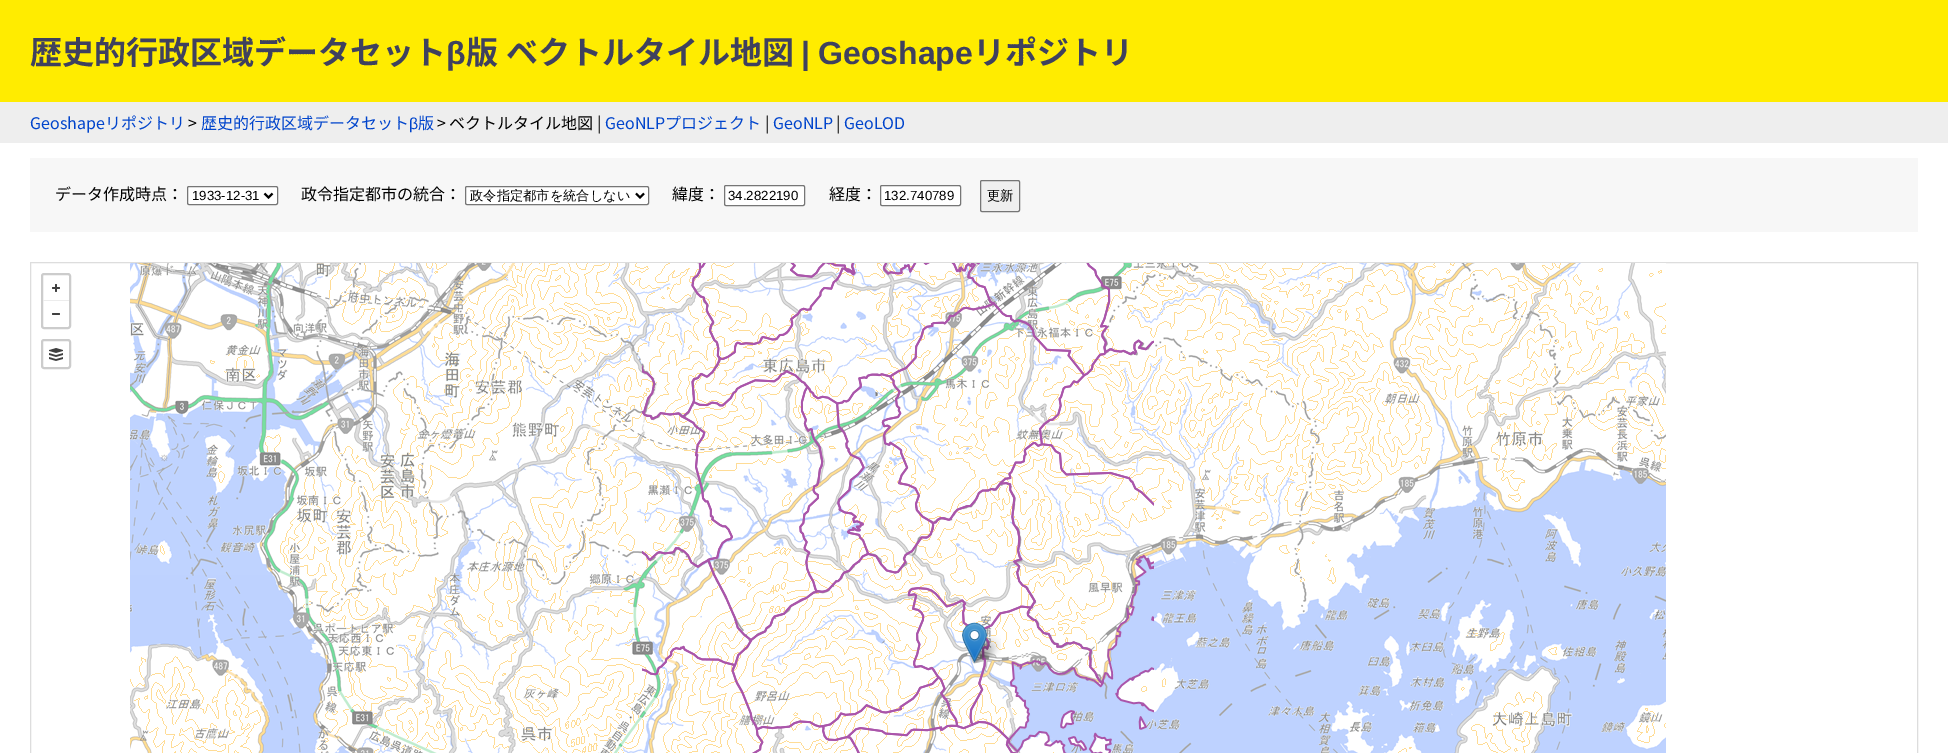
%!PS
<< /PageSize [1948 753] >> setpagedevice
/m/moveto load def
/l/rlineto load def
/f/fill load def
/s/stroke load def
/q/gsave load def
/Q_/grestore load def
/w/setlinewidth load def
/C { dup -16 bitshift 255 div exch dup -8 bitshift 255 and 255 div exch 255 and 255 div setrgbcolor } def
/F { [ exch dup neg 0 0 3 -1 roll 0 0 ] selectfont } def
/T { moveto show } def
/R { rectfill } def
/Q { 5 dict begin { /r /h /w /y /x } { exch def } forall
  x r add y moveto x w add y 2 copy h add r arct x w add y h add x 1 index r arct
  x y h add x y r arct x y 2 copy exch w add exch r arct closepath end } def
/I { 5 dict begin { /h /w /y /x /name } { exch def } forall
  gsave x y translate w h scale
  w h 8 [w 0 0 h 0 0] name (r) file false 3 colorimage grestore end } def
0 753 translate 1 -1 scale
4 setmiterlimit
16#FFFFFF C
0 0 1948 753 R
16#FFEC00 C
0 0 1948 102 R
/NotoSansJP-Bold 32 F
16#3F415E C
(歴史的行政区域データセット) 30 64 T
/LiberationSans-Bold 32 F
(β) 446 64 T
/NotoSansJP-Bold 32 F
466 64 m 1 0 32 (版 ベクトルタイル地図) widthshow
/LiberationSans-Bold 32 F
(|) 801 64 T
(Geoshape) 818 64 T
/NotoSansJP-Bold 32 F
(リポジトリ) 973 64 T
16#EEEEEE C
0 102 1948 41 R
/NotoSansJP-Regular 16 F
16#0044CC C
(Geoshapeリポジトリ) 30 129 T
16#000000 C
(>) 188 129 T
16#0044CC C
(歴史的行政区域データセット) 201 129 T
/LiberationSans-Regular 16 F
(β) 409 129 T
/NotoSansJP-Regular 16 F
(版) 418 129 T
16#000000 C
(> ベクトルタイル地図 |) 437 129 T
16#0044CC C
(GeoNLPプロジェクト) 605 129 T
16#000000 C
(|) 765 129 T
16#0044CC C
(GeoNLP) 773 129 T
16#000000 C
(|) 836 129 T
16#0044CC C
(GeoLOD) 844 129 T
16#F7F7F7 C
30 158 1888 74 R
16#000000 C
(データ作成時点：) 55 200 T
16#FFFFFF C
187.5 186.5 90 18 1.5 Q q f Q_
16#767676 C
s
16#000000 C
2 w
264.5 193.5 m 4 4 l 4 -4 l s
/LiberationSans-Regular 13.25 F
(1933-12-31) 192 200 T
/NotoSansJP-Regular 16 F
(政令指定都市の統合：) 301 200 T
16#FFFFFF C
465.5 186.5 183 18 1.5 Q q f Q_
16#767676 C
1 w
s
16#000000 C
2 w
636 193.5 m 4 4 l 4 -4 l s
/WenQuanYiZenHei-Medium 13.25 F
(政令指定都市を統合しない) 470 200 T
/NotoSansJP-Regular 16 F
(緯度：) 672 200 T
16#FFFFFF C
724.5 185.5 80 20 1.5 Q q f Q_
16#767676 C
1 w
s
/LiberationSans-Regular 13.25 F
16#000000 C
(34.2822190) 728 200 T
/NotoSansJP-Regular 16 F
(経度：) 829 200 T
16#FFFFFF C
880.5 185.5 80 20 1.5 Q q f Q_
16#767676 C
s
/LiberationSans-Regular 13.25 F
16#000000 C
(132.740789) 884 200 T
16#EFEFEF C
980.5 180.5 39 31 1.5 Q q f Q_
16#767676 C
s
/WenQuanYiZenHei-Medium 13.25 F
16#000000 C
(更新) 987 200 T
16#DDDDDD C
30.5 262.5 1887 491 rectstroke
16#CCCCCC C
2 w
42 274 28 54 2 Q s
(1.rgb) 52 284 8 8 I
16#ECECEC C
43 300 26 1 R
(2.rgb) 52 313 8 2 I
16#CCCCCC C
42 340 28 28 2 Q s
(3.rgb) 49 348 14 13 I
(4.rgb) 130 263 256 56 I
(5.rgb) 386 263 256 56 I
(6.rgb) 642 263 256 56 I
(7.rgb) 898 263 256 56 I
(8.rgb) 1154 263 256 56 I
(9.rgb) 1410 263 256 56 I
(10.rgb) 130 319 256 256 I
(11.rgb) 386 319 256 256 I
(12.rgb) 642 319 256 256 I
(13.rgb) 898 319 256 256 I
(14.rgb) 1154 319 256 256 I
(15.rgb) 1410 319 256 256 I
(16.rgb) 130 575 256 178 I
(17.rgb) 386 575 256 178 I
(18.rgb) 642 575 256 178 I
(19.rgb) 898 575 256 178 I
(20.rgb) 1154 575 256 178 I
(21.rgb) 1410 575 256 178 I
(22.rgb) 691 263 207 56 I
(23.rgb) 898 263 213 56 I
(24.rgb) 642 319 256 256 I
(25.rgb) 898 319 256 256 I
(26.rgb) 642 575 256 178 I
(27.rgb) 898 575 256 178 I
(29.rgb) 972 635 29 28 I
(28.rgb) 962 622 25 41 I
showpage
